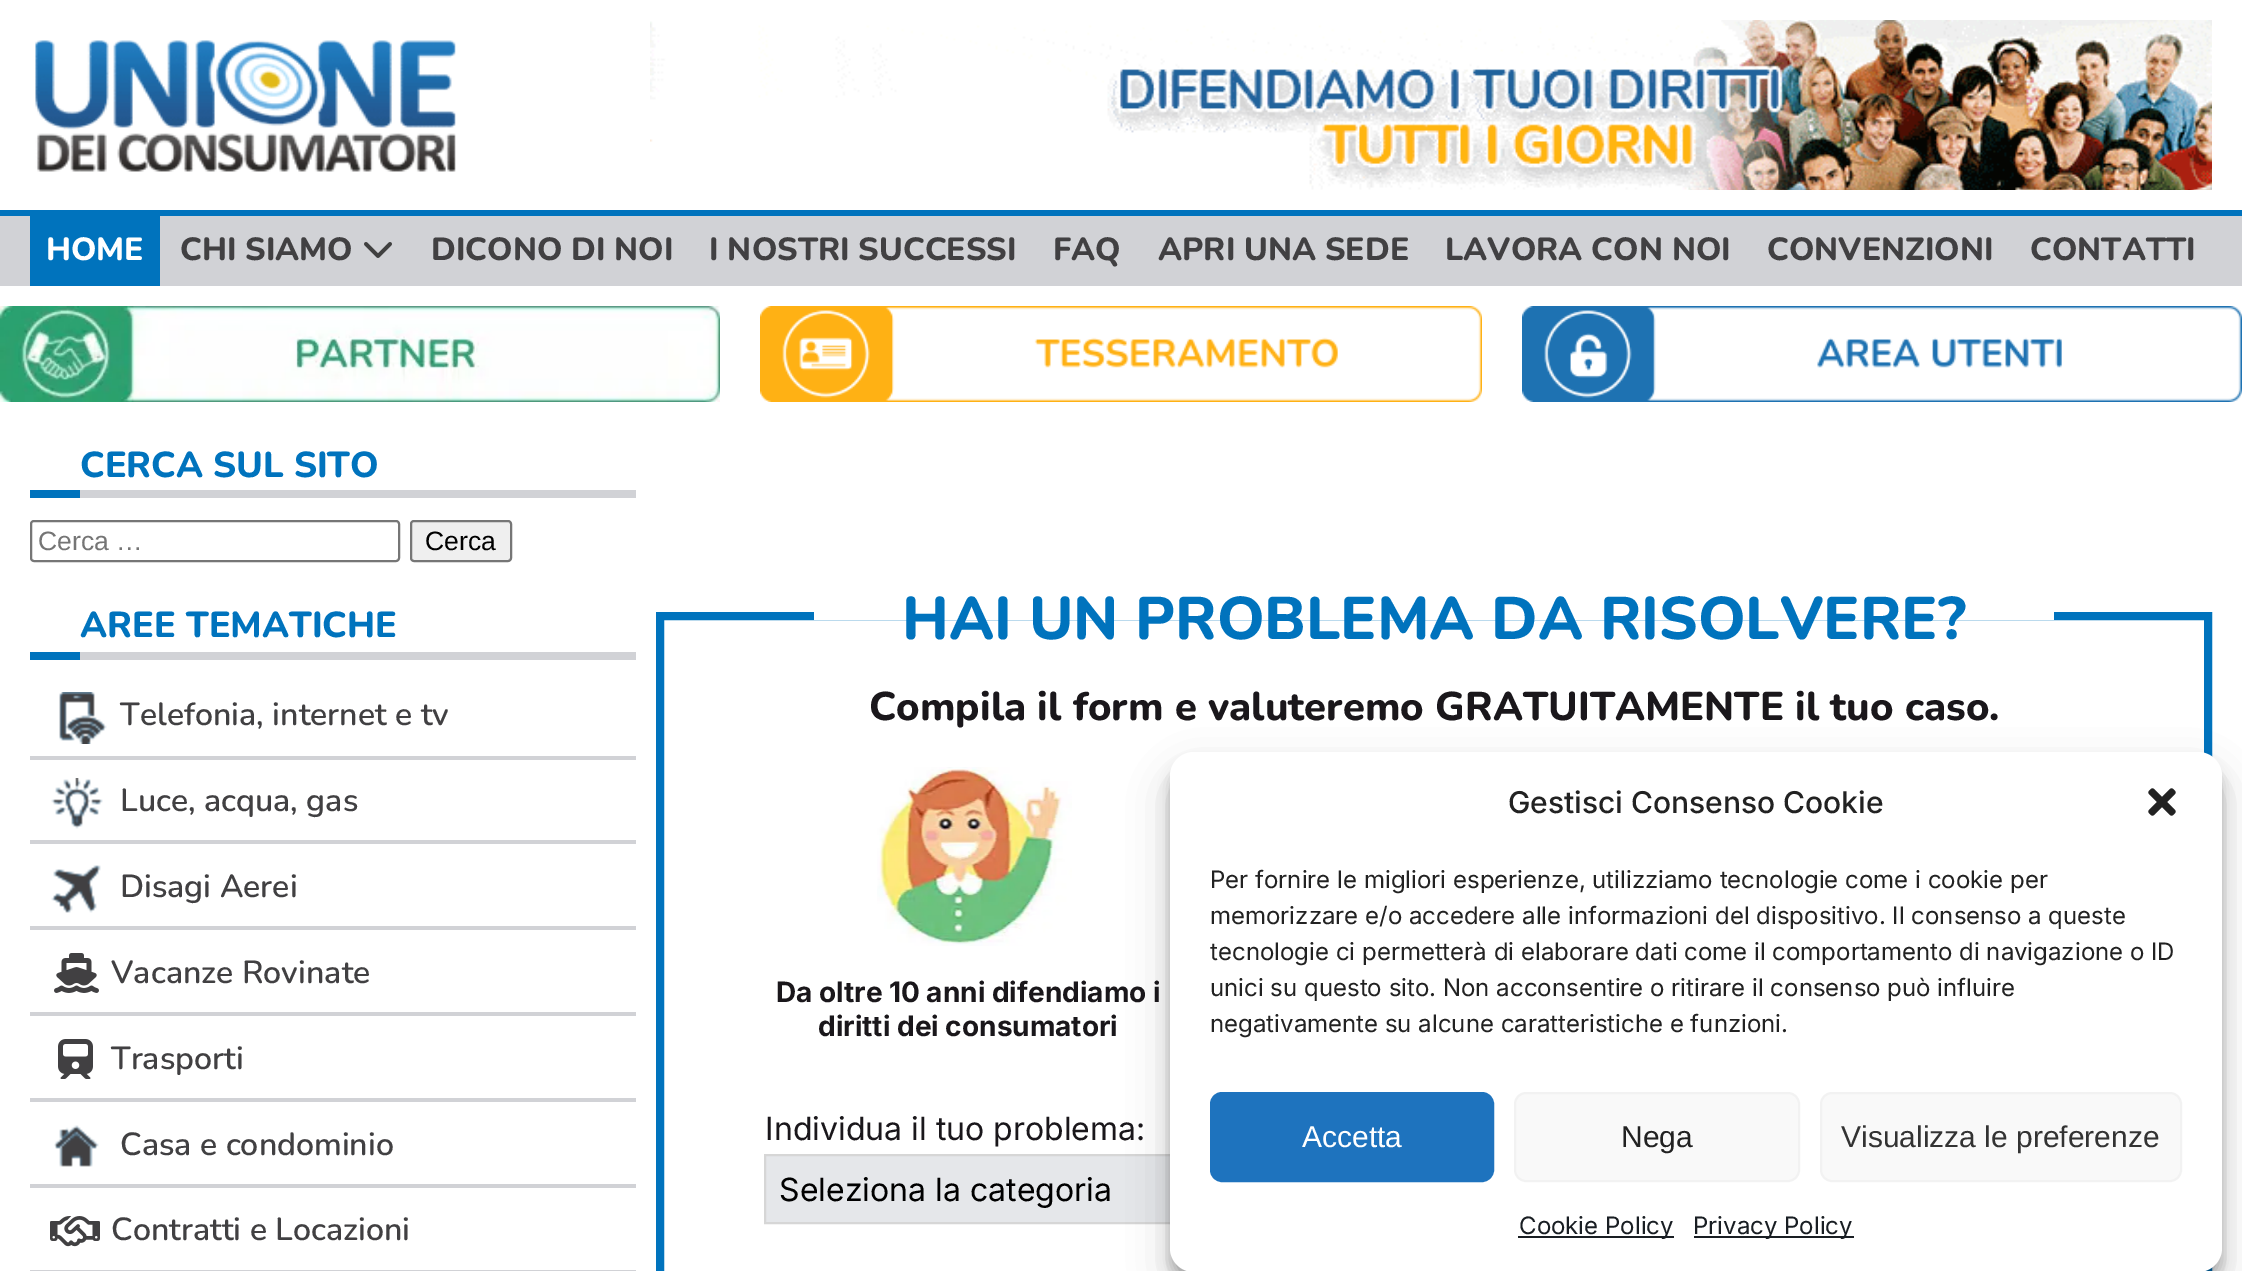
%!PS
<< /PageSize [2242 1271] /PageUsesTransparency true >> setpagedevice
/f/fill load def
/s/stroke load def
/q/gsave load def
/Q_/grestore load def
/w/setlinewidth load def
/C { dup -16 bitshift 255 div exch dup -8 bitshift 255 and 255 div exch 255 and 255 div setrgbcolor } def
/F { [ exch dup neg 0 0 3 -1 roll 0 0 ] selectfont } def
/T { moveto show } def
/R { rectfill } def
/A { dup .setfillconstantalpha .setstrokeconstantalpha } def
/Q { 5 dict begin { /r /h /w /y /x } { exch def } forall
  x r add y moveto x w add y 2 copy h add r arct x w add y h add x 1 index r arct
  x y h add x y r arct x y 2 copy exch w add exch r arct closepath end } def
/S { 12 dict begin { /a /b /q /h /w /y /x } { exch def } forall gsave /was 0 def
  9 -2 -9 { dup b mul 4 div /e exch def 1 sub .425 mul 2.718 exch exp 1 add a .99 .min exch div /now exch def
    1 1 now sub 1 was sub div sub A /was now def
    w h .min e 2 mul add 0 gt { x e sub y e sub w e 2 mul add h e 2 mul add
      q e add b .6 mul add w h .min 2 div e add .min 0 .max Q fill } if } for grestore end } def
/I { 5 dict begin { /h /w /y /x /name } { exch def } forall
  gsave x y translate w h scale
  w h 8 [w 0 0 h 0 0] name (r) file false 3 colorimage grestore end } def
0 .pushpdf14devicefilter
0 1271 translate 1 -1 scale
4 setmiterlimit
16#FFFFFF C
0 0 2242 1271 R
(1.rgb) 35 40 421 132 I
(2.rgb) 650 20 1562 170 I
16#D1D2D6 C
0 216 2242 70 R
16#0073BD C
0 210 2242 6 R
30 216 130 70 R
/Nunito-ExtraBold 32 F
16#FFFFFF C
(HOME) 46 260 T
16#414042 C
(CHI SIAMO) 180 260 T
(3.rgb) 364 242 28 16 I
(DICONO DI NOI) 431 260 T
(I NOSTRI SUCCESSI) 709 260 T
(FAQ) 1053 260 T
(APRI UNA SEDE) 1158 260 T
(LAVORA CON NOI) 1445 260 T
(CONVENZIONI) 1767 260 T
(CONTATTI) 2030 260 T
(4.rgb) 0 306 720 96 I
(5.rgb) 760 306 722 96 I
(6.rgb) 1522 306 720 96 I
16#D1D2D6 C
80 490 556 8 R
/Nunito-ExtraBold 36 F
16#0073BD C
(CERCA SUL SITO) 80 477 T
30 490 50 8 R
16#767676 C
2 w
31 521 368 40 3 Q s
/LiberationSans-Regular 26.5 F
16#757575 C
(Cerca …) 38 550 T
16#EFEFEF C
411 521 100 40 3 Q q f Q_
16#767676 C
s
16#000000 C
(Cerca) 425 550 T
16#D1D2D6 C
80 652 556 8 R
/Nunito-ExtraBold 36 F
16#0073BD C
(AREE TEMATICHE) 80 637 T
30 652 50 8 R
16#D1D2D6 C
30 756 606 4 R
(7.rgb) 59 692 48 52 I
/Nunito-SemiBold 32 F
16#414042 C
(Telefonia, internet e tv) 120 725 T
16#D1D2D6 C
30 840 606 4 R
(8.rgb) 51 778 52 51 I
16#414042 C
(Luce, acqua, gas) 120 811 T
16#D1D2D6 C
30 926 606 4 R
(9.rgb) 51 865 50 48 I
16#414042 C
(Disagi Aerei) 120 897 T
16#D1D2D6 C
30 1012 606 4 R
(10.rgb) 54 953 45 40 I
16#414042 C
(Vacanze Rovinate) 111 983 T
16#D1D2D6 C
30 1098 606 4 R
(11.rgb) 58 1039 35 40 I
16#414042 C
(Trasporti) 111 1069 T
16#D1D2D6 C
30 1184 606 4 R
(12.rgb) 54 1125 45 42 I
16#414042 C
(Casa e condominio) 120 1155 T
16#D1D2D6 C
30 1270 606 1 R
(13.rgb) 50 1216 50 31 I
16#414042 C
(Contratti e Locazioni) 111 1240 T
16#0073BD C
8 w
660 616 1548 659 rectstroke
16#FFFFFF C
814 612 1240 8 R
/Nunito-ExtraBold 60 F
16#0073BD C
(HAI UN PROBLEMA DA RISOLVERE?) 902 639 T
/Nunito-ExtraBold 40 F
16#1A171B C
(Compila il form e valuteremo GRATUITAMENTE il tuo caso.) 869 720 T
(14.rgb) 877 767 195 179 I
/Inter-Bold 28 F
(Da oltre 10 anni difendiamo i) 776 1002 T
(diritti dei consumatori) 818 1036 T
/Inter-Regular 32 F
(Individua il tuo problema:) 765 1140 T
16#E5E7EA C
766 1156 404 66 R
16#D6D6D6 C
2 w
765 1155 1338 68 rectstroke
16#000000 C
(Seleziona la categoria) 779 1201 T
1170 764 1052 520 24 6 .23 S
1170 772 1052 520 24 20 .19 S
16#FFFFFF C
1170 752 1052 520 24 Q f
/Inter-Medium 30 F
16#222222 C
(Gestisci Consenso Cookie) 1508 813 T
(15.rgb) 2148 788 28 28 I
/Inter-Regular 24 F
(Per fornire le migliori esperienze, utilizziamo tecnologie come i cookie per) 1210 888 T
(memorizzare e/o accedere alle informazioni del dispositivo. Il consenso a queste) 1210 924 T
(tecnologie ci permetterà di elaborare dati come il comportamento di navigazione o ID) 1210 960 T
(unici su questo sito. Non acconsentire o ritirare il consenso può influire) 1210 996 T
(negativamente su alcune caratteristiche e funzioni.) 1210 1032 T
16#1E73BE C
1211 1093 282 88 11 Q q f Q_
s
/LiberationSans-Regular 30 F
16#FFFFFF C
(Accetta) 1302 1147 T
16#F9F9F9 C
1515 1093 284 88 11 Q q f Q_
16#F2F2F2 C
s
16#222222 C
(Nega) 1621 1147 T
16#F9F9F9 C
1821 1093 360 88 11 Q q f Q_
16#F2F2F2 C
s
16#333333 C
(Visualizza le preferenze) 1841 1147 T
16#191E23 C
1518 1236 156 2 R
/Inter-Regular 24 F
(Cookie Policy) 1519 1234 T
1694 1236 160 2 R
(Privacy Policy) 1693 1234 T
.poppdf14devicefilter showpage
